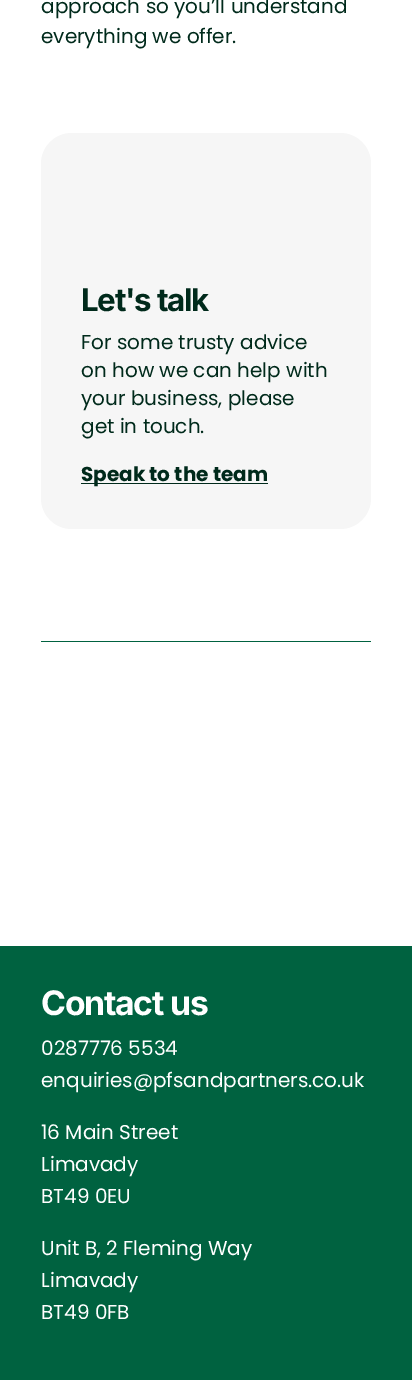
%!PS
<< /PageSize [412 1380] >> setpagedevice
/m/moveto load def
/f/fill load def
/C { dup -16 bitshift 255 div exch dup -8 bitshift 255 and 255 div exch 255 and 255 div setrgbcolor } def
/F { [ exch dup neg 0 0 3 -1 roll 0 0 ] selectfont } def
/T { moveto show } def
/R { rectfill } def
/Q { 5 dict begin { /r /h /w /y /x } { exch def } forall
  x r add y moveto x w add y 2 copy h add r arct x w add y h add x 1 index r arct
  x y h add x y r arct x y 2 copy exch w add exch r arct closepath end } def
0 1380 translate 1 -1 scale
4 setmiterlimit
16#FFFFFF C
0 0 412 1380 R
/Poppins-Regular 20 F
16#002A1B C
(approach so you’ll understand) 41 13 T
(everything we offer.) 41 43 T
16#F6F6F6 C
41 133 330 396 31 Q f
/Inter-Bold 31.25 F
16#002A1B C
81 311 m -1.25 0 (Let's talk) ashow
/Poppins-Regular 20 F
(For some trusty advice) 81 349 T
(on how we can help with) 81 377 T
(your business, please) 81 405 T
(get in touch.) 81 433 T
81 483 187 1 R
/Poppins-Bold 20 F
(Speak to the team) 81 481 T
16#006240 C
41 641 330 1 R
0 946 412 434 R
/Inter-Bold 33.75 F
16#FFFFFF C
41 1015 m -1.25 0 (Contact us) ashow
/Poppins-Regular 20 F
(0287776 5534) 41 1055 T
(enquiries@pfsandpartners.co.uk) 41 1087 T
(16 Main Street) 41 1139 T
(Limavady) 41 1171 T
(BT49 0EU) 41 1203 T
(Unit B, 2 Fleming Way) 41 1255 T
(Limavady) 41 1287 T
(BT49 0FB) 41 1319 T
showpage
